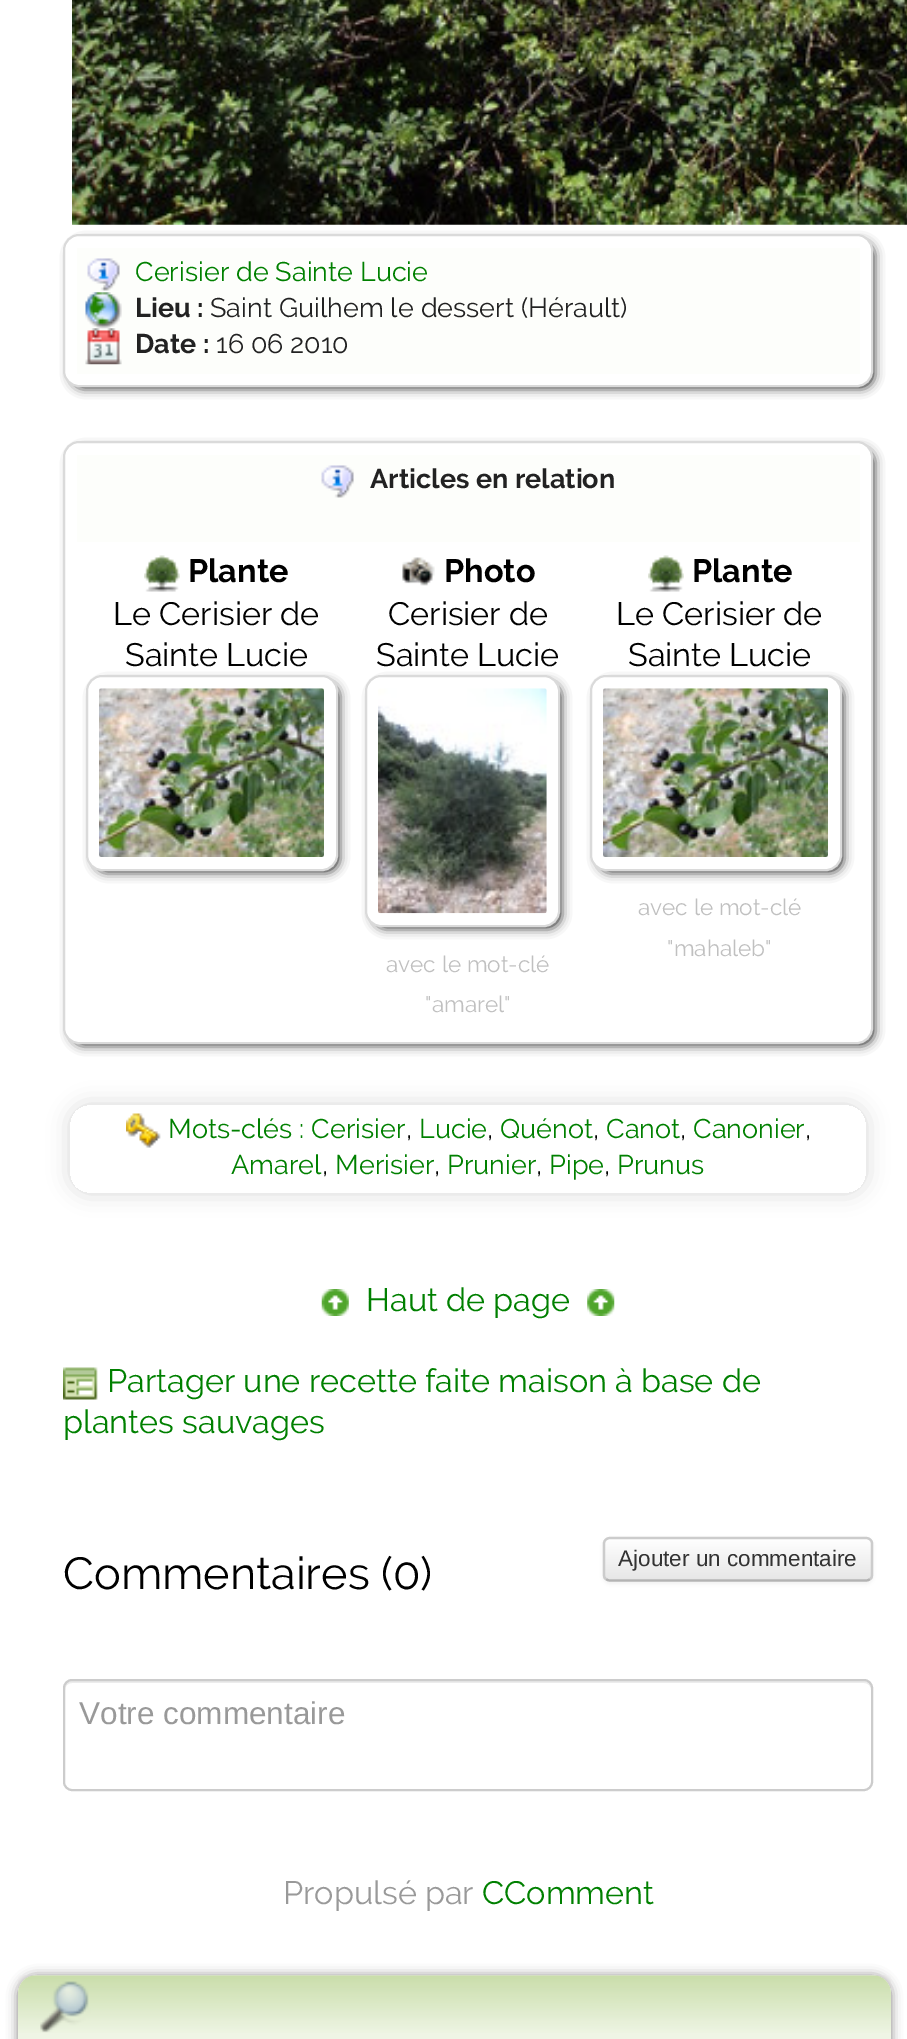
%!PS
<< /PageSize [907 2039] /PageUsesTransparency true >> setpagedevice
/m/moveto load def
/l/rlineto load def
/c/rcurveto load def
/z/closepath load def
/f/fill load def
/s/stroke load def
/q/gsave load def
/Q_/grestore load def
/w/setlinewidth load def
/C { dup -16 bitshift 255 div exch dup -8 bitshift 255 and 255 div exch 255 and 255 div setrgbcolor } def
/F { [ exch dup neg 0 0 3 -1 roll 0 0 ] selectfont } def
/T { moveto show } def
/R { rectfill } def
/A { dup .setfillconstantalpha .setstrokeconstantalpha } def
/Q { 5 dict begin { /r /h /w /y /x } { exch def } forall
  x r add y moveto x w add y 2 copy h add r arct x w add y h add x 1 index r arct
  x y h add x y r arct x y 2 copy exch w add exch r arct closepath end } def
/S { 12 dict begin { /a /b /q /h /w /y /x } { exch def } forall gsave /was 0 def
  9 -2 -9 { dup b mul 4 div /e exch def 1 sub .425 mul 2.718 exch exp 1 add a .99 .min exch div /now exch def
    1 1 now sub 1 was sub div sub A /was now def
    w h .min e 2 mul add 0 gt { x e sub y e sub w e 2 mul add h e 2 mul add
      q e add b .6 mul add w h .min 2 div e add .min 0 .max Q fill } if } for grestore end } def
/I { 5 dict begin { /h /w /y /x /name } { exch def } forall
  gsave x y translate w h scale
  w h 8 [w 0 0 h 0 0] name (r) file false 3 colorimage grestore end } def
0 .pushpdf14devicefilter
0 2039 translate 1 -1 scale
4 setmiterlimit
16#FFFFFF C
0 0 907 2039 R
(1.rgb) 72 0 835 225 I
q
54 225 m 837 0 l 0 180 l -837 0 l z 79 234 m 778 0 l 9 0 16 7 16 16 c 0 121 l 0 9 -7 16 -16 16 c -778 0 l -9 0 -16 -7 -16 -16 c 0 -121 l 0 -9 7 -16 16 -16 c z eoclip newpath
16#000000 C
72 243 801 144 11 5.5 1 S
Q_
16#DADADA C
2 w
64 235 808 151 15 Q s
16#FDFEFB C
77 248 783 126 R
(2.rgb) 87 258 33 33 I
/Raleway-Regular 27 F
16#008000 C
(Cerisier de Sainte Lucie) 135 281 T
(3.rgb) 85 292 37 37 I
/Raleway-Bold 27 F
16#222222 C
(Lieu :) 135 317 T
/Raleway-Regular 27 F
(Saint Guilhem le dessert \(Hérault\)) 210 317 T
(4.rgb) 85 328 37 37 I
/Raleway-Bold 27 F
(Date :) 135 353 T
/Raleway-Regular 27 F
(16 06 2010) 216 353 T
q
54 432 m 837 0 l 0 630 l -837 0 l z 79 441 m 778 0 l 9 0 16 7 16 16 c 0 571 l 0 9 -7 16 -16 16 c -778 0 l -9 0 -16 -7 -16 -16 c 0 -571 l 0 -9 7 -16 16 -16 c z eoclip newpath
16#000000 C
72 450 801 594 11 5.5 1 S
Q_
16#DADADA C
64 442 808 601 15 Q s
16#FDFEFB C
77 455 783 87 R
(2.rgb) 321 465 33 33 I
/Raleway-Bold 27 F
16#222222 C
(Articles en relation) 370 488 T
(5.rgb) 144 555 36 37 I
/Raleway-Bold 32.4 F
16#000000 C
(Plante) 188 582 T
/Raleway-Regular 32.4 F
(Le Cerisier de) 113 625 T
(Sainte Lucie) 125 666 T
q
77 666 m 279 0 l 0 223 l -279 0 l z 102 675 m 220 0 l 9 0 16 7 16 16 c 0 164 l 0 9 -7 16 -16 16 c -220 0 l -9 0 -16 -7 -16 -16 c 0 -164 l 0 -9 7 -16 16 -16 c z eoclip newpath
95 684 243 187 11 5.5 1 S
Q_
16#DADADA C
87 676 250 194 15 Q s
(6.rgb) 99 688 225 169 I
(7.rgb) 402 557 33 29 I
/Raleway-Bold 32.4 F
16#000000 C
(Photo) 444 582 T
/Raleway-Regular 32.4 F
(Cerisier de) 388 625 T
(Sainte Lucie) 376 666 T
q
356 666 m 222 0 l 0 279 l -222 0 l z 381 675 m 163 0 l 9 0 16 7 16 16 c 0 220 l 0 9 -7 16 -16 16 c -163 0 l -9 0 -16 -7 -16 -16 c 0 -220 l 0 -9 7 -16 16 -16 c z eoclip newpath
374 684 186 243 11 5.5 1 S
Q_
16#DADADA C
366 676 193 250 15 Q s
(8.rgb) 378 688 169 226 I
/Raleway-Regular 22.5 F
16#C0C0C0 C
(avec le mot-clé) 386 972 T
("amarel") 425 1012 T
(9.rgb) 648 555 36 37 I
/Raleway-Bold 32.4 F
16#000000 C
(Plante) 692 582 T
/Raleway-Regular 32.4 F
(Le Cerisier de) 616 625 T
(Sainte Lucie) 628 666 T
q
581 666 m 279 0 l 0 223 l -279 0 l z 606 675 m 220 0 l 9 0 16 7 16 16 c 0 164 l 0 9 -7 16 -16 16 c -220 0 l -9 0 -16 -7 -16 -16 c 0 -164 l 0 -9 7 -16 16 -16 c z eoclip newpath
599 684 243 187 11 5.5 1 S
Q_
16#DADADA C
591 676 250 194 15 Q s
(10.rgb) 603 688 225 169 I
/Raleway-Regular 22.5 F
16#C0C0C0 C
(avec le mot-clé) 638 915 T
("mahaleb") 667 956 T
q
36 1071 m 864 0 l 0 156 l -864 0 l z 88 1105 m 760 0 l 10 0 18 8 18 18 c 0 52 l 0 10 -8 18 -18 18 c -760 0 l -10 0 -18 -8 -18 -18 c 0 -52 l 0 -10 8 -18 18 -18 c z eoclip newpath
16#000000 C
70 1105 796 88 18 11 .15 S
Q_
(11.rgb) 126 1113 35 35 I
/Raleway-Regular 27 F
16#008000 C
(Mots-clés : Cerisier) 168 1138 T
16#000000 C
(,) 406 1138 T
16#008000 C
(Lucie) 419 1138 T
16#000000 C
(,) 487 1138 T
16#008000 C
(Quénot) 500 1138 T
16#000000 C
(,) 593 1138 T
16#008000 C
(Canot) 606 1138 T
16#000000 C
(,) 680 1138 T
16#008000 C
(Canonier) 693 1138 T
16#000000 C
(,) 805 1138 T
16#008000 C
(Amarel) 231 1174 T
16#000000 C
(,) 322 1174 T
16#008000 C
(Merisier) 335 1174 T
16#000000 C
(,) 434 1174 T
16#008000 C
(Prunier) 447 1174 T
16#000000 C
(,) 536 1174 T
16#008000 C
(Pipe) 549 1174 T
16#000000 C
(,) 604 1174 T
16#008000 C
(Prunus) 617 1174 T
(12.rgb) 321 1289 28 27 I
/Raleway-Regular 32.4 F
(Haut de page) 366 1311 T
(13.rgb) 587 1289 28 27 I
(14.rgb) 63 1367 35 33 I
(Partager une recette faite maison à base de) 107 1392 T
(plantes sauvages) 63 1433 T
/Raleway-Regular 45 F
16#000000 C
(Commentaires \(0\)) 63 1589 T
603 1539 270 45 7 2 .05 S
16#F5F5F5 C
603 1537 270 45 7 Q f
q
603 1537 270 45 7 Q clip newpath
q 603 1539 m 270 0 l 0 41 l -270 0 l z clip newpath
<< /ShadingType 2 /ColorSpace /DeviceRGB /Coords [738 1539 738 1580] /Extend [true true] /Function << /FunctionType 2 /Domain [0 1] /C0 [1 1 1] /C1 [.902 .902 .902] /N 1 >> >> shfill Q_
Q_
16#B3B3B3 C
2.2 w
870 1579 m -1 1 -2.5 1.5 -4 1.5 c -256 0 l -1.5 0 -3 -.5 -4 -1.5 c s
16#CCCCCC C
606 1579 m -1.5 -1 -2 -2.5 -2 -4 c 0 -31.5 l 0 -1.5 .5 -3 2 -4 c 1 -1 2.5 -1.5 4 -1.5 c 256 0 l 1.5 0 3 .5 4 1.5 c 1.5 1 2 2.5 2 4 c 0 31.5 l 0 1.5 -.5 3 -2 4 c s
/LiberationSans-Regular 22.5 F
16#333333 C
(Ajouter un commentaire) 618 1566 T
16#ECECEC C
72 1683 m 792 0 l 4 0 7 3 7 7 c 0 -2 l 0 -4 -3 -7 -7 -7 c -792 0 l -4 0 -7 3 -7 7 c 0 2 l 0 -4 3 -7 7 -7 c z f
16#CCCCCC C
2 w
64 1680 808 110 8 Q s
/LiberationSans-Regular 31.5 F
16#999999 C
(Votre commentaire) 79 1724 T
/Raleway-Regular 32.4 F
(Propulsé par) 283 1904 T
16#008000 C
(CComment) 482 1904 T
16#0F0404 C
18 1976 873 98 18 5.5 .5 S
16#EFF5E5 C
18 1976 873 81 18 Q f
(15.rgb) 18 1975 873 58 I
.poppdf14devicefilter showpage
